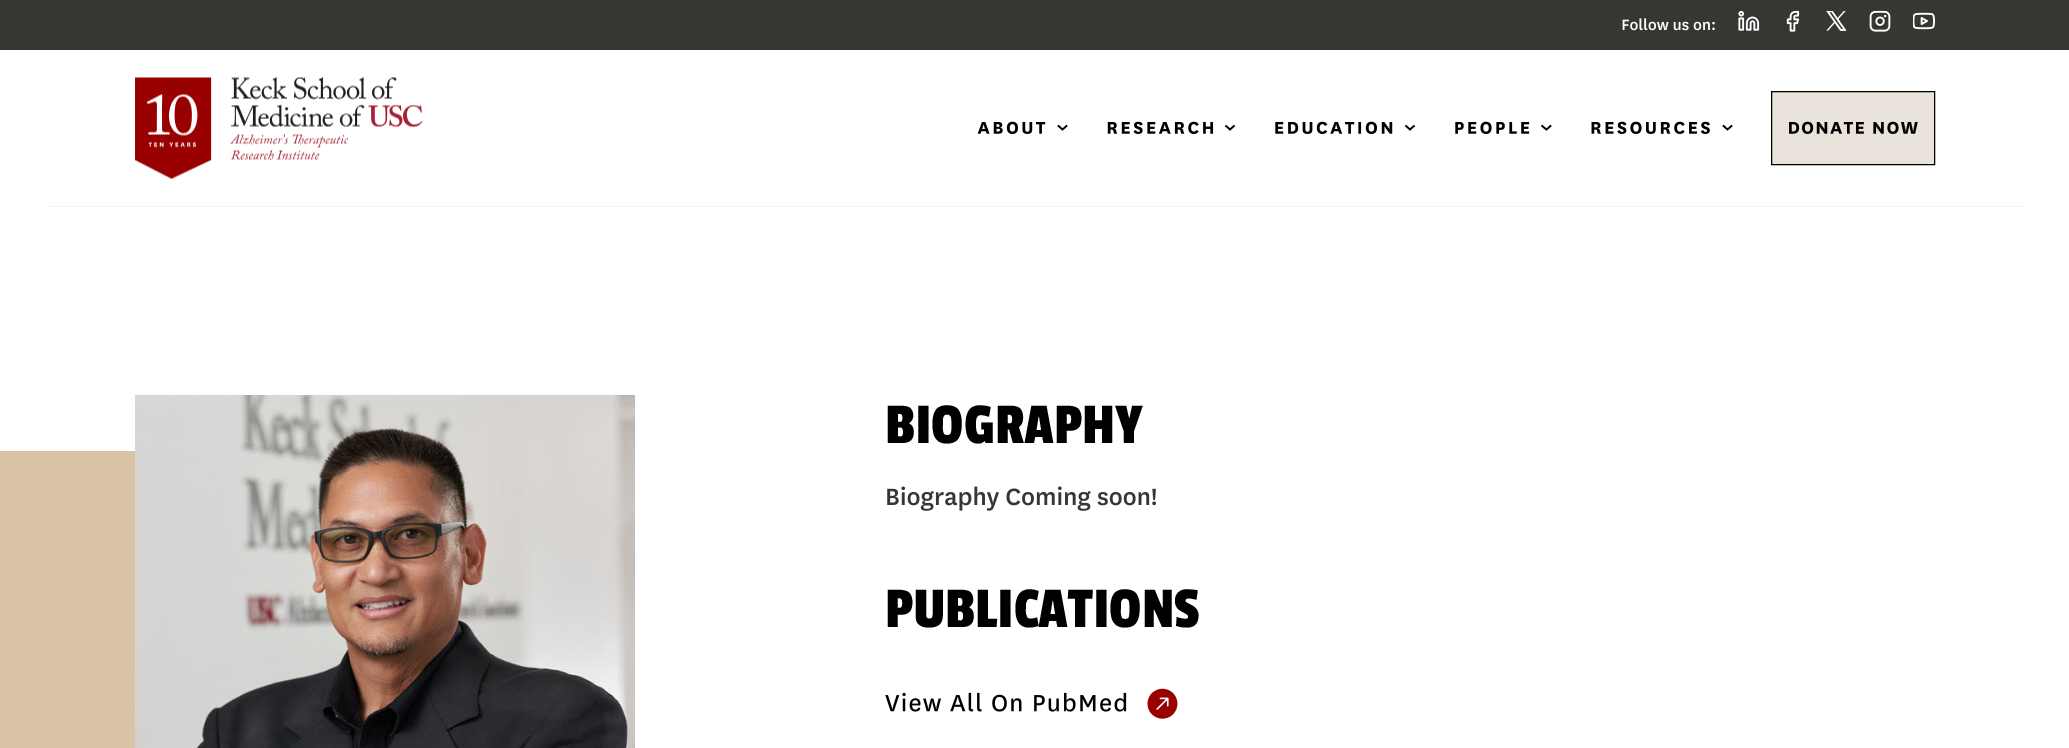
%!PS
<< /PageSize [2069 748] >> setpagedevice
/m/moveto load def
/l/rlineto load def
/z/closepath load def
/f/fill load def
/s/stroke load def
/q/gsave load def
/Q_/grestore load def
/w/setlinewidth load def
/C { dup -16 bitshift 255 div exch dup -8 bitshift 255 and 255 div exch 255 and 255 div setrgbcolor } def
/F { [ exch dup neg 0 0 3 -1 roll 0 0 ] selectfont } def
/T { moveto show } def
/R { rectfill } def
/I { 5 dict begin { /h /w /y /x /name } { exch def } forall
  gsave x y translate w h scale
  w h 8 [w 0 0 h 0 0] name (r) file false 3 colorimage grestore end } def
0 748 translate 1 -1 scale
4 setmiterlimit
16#FFFFFF C
0 0 2069 748 R
16#373633 C
0 0 2069 50 R
(1.rgb) 1622 18 93 13 I
(2.rgb) 1738 10 22 21 I
(3.rgb) 1786 10 14 22 I
(4.rgb) 1826 11 20 20 I
(5.rgb) 1869 10 22 22 I
(6.rgb) 1913 12 22 18 I
16#F4F4F4 C
48 206 1975 1 R
(7.rgb) 135 77 288 102 I
(8.rgb) 977 121 69 13 I
16#000000 C
1.6 w
1058 125.5 m 4.5 4 l 4.5 -4 l s
(9.rgb) 1107 121 107 13 I
1225.5 125.5 m 4.5 4 l 4.5 -4 l s
(10.rgb) 1275 121 118 13 I
1405.5 125.5 m 4.5 4 l 4.5 -4 l s
(11.rgb) 1455 121 75 13 I
1541.5 125.5 m 5 4 l 4.5 -4 l s
(12.rgb) 1591 121 119 13 I
1723 125.5 m 4.5 4 l 4.5 -4 l s
16#EAE3DC C
1771.5 91.5 m 163 0 l 0 73 l -163 0 l z q f Q_
16#000000 C
1 w
s
(13.rgb) 1789 121 129 13 I
16#D8C3A4 C
0 451 135 297 R
(14.rgb) 135 395 500 353 I
/PassionOne-Regular 60 F
16#000000 C
(BIOGRAPHY) 885 443 T
(15.rgb) 887 486 270 25 I
(PUBLICATIONS) 885 627 T
(16.rgb) 885 692 242 20 I
(17.rgb) 1147 688 31 31 I
showpage
